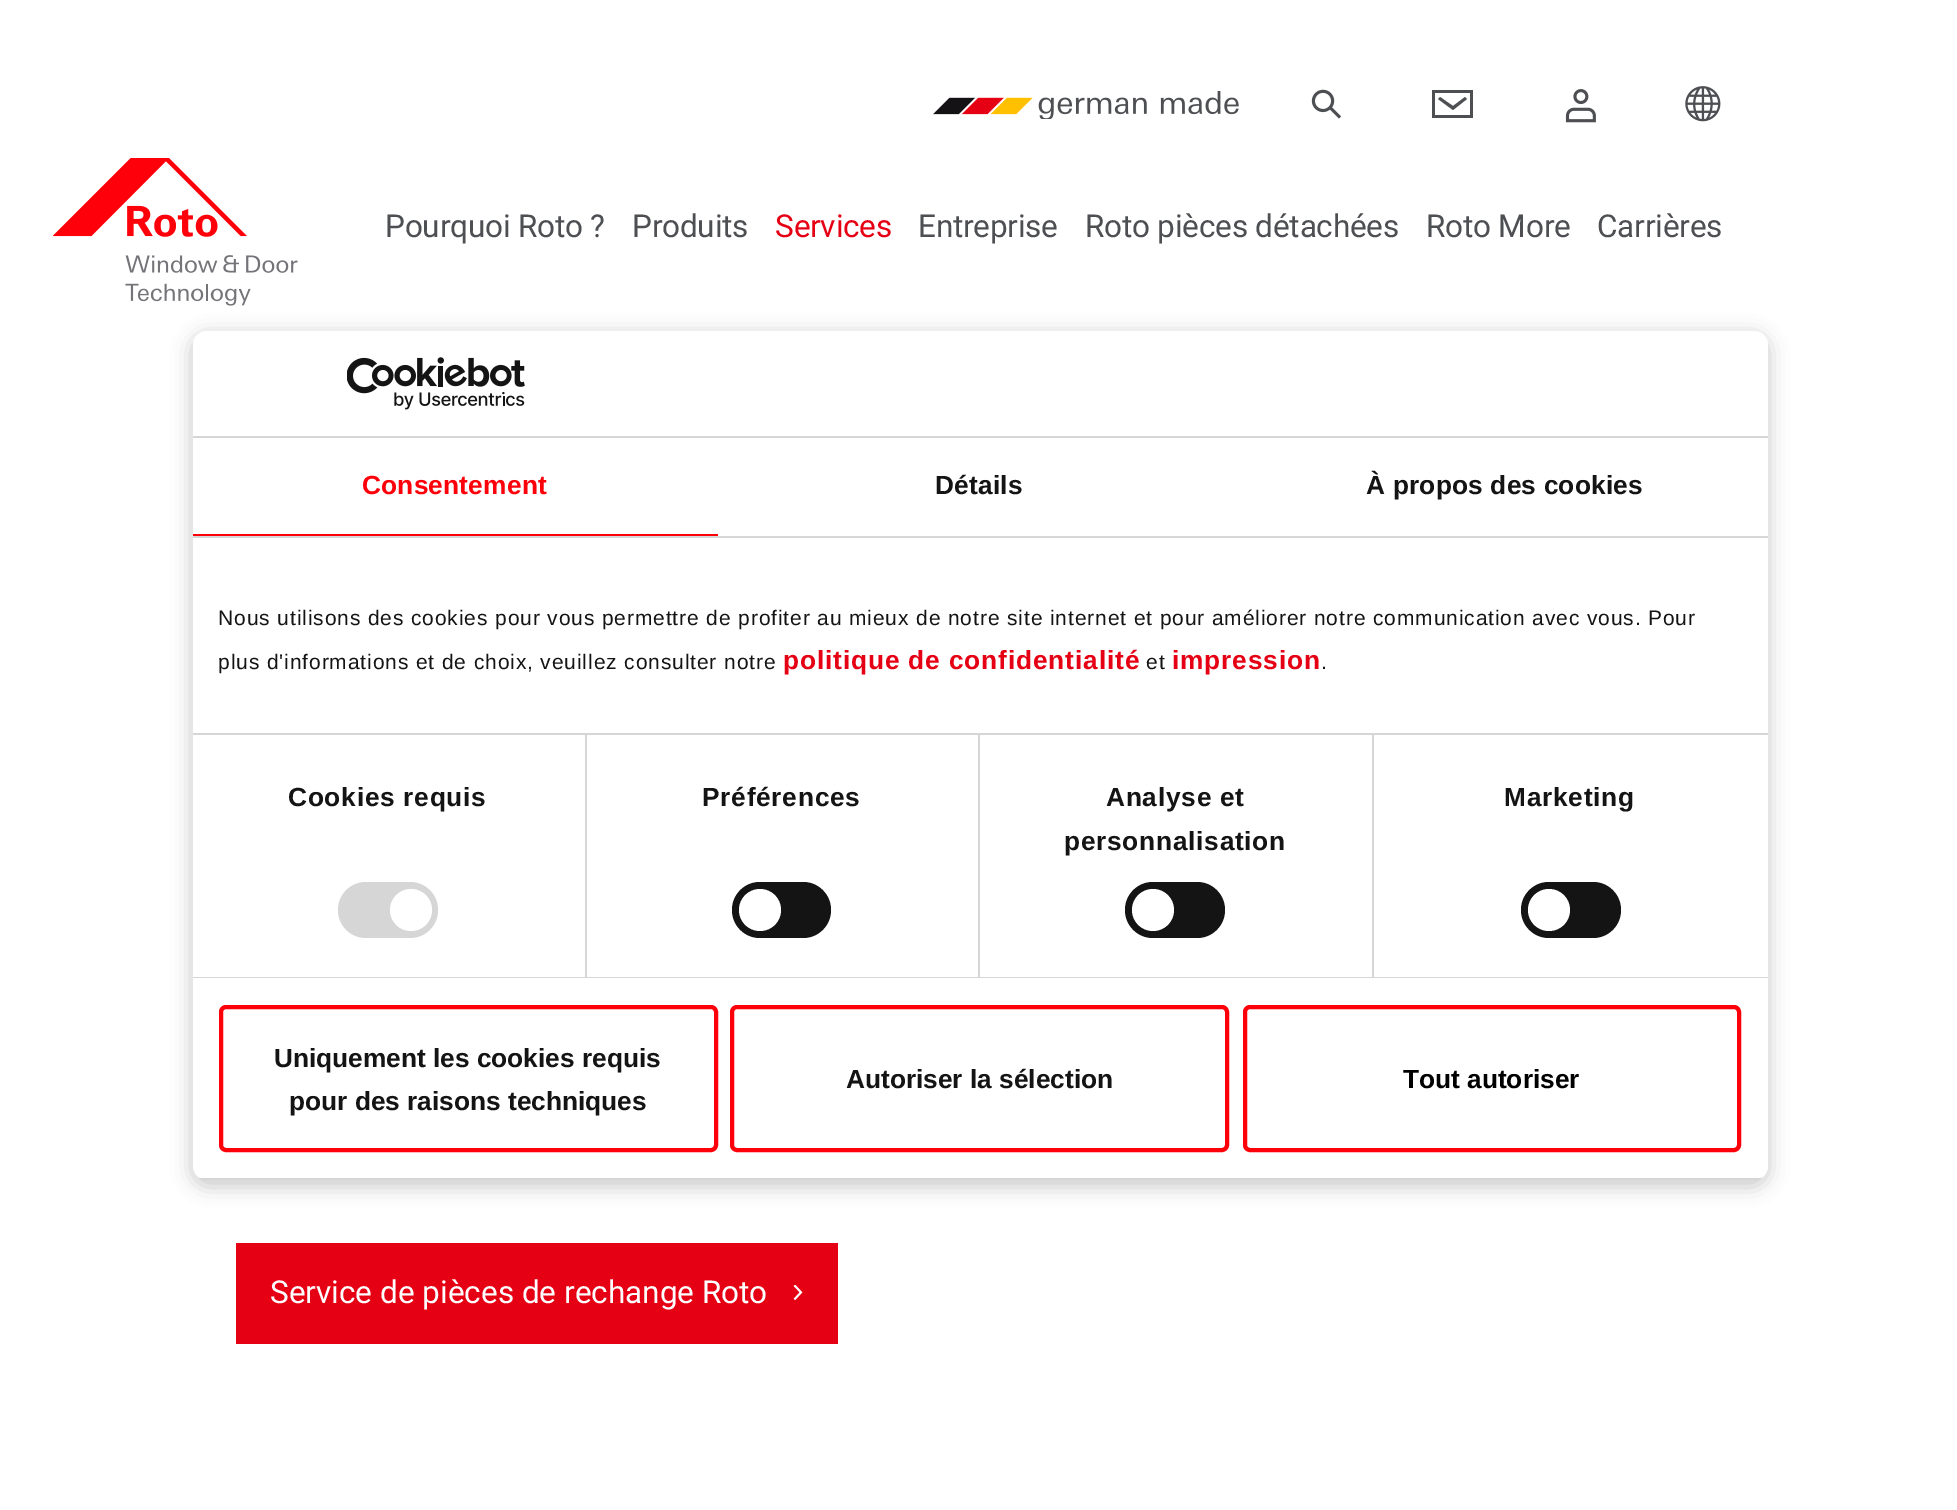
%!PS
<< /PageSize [1957 1510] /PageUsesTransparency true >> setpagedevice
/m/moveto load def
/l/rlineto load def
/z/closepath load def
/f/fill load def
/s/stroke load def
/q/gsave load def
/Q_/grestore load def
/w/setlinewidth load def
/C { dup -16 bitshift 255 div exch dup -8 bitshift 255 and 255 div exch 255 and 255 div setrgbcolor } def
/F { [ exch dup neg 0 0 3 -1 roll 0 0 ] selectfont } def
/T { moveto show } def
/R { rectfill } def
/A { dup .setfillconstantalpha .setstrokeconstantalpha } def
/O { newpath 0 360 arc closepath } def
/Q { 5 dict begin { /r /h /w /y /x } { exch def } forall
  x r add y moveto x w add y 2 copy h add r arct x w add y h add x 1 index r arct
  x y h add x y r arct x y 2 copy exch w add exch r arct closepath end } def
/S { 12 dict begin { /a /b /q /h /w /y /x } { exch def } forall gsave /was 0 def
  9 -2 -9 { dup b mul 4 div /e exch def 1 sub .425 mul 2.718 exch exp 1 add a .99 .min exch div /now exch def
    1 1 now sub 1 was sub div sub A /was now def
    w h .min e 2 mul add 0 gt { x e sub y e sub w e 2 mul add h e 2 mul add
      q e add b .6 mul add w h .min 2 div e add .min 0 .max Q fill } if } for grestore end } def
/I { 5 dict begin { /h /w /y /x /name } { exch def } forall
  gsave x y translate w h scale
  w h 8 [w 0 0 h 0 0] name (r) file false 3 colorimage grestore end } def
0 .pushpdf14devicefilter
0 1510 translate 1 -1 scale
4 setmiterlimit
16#FFFFFF C
0 0 1957 1510 R
(1.rgb) 933 91 306 28 I
(2.rgb) 1311 89 31 30 I
16#4D4F53 C
1467 99 m -2 -2 l -12 9 l -13 -9 l -2 2 l 15 11 l z 1435 93 m 35 0 l 0 22 l -35 0 l z 1432 118 m 41 0 l 0 -28 l -41 0 l z f
(3.rgb) 1565 89 31 34 I
(4.rgb) 1685 86 36 36 I
(5.rgb) 53 158 245 148 I
/Roboto-Regular 31.5 F
385 237 m -.2 0 (Pourquoi Roto ?) ashow
632 237 m -.2 0 (Produits) ashow
16#E60014 C
775 237 m -.2 0 (Services) ashow
16#4D4F53 C
918 237 m -.2 0 (Entreprise) ashow
1085 237 m -.2 0 (Roto pièces détachées) ashow
1426 237 m -.2 0 (Roto More) ashow
1597 237 m -.2 0 (Carrières) ashow
16#E60014 C
236 1243 602 101 R
(6.rgb) 793 1285 10 15 I
16#FFFFFF C
(Service de pièces de rechange Roto) 270 1303 T
16#000000 C
191 334 1578 853 16 9.5 .2 S
16#FFFFFF C
193 331 1575 849 14 Q f
16#D6D6D6 C
193 436 1575 2 R
(7.rgb) 347 357 178 53 I
193 536 1575 2 R
16#FE0009 C
193 534 525 2 R
/LiberationSans-Bold 26.25 F
362 494 m .2 0 (Consentement) ashow
16#141414 C
935 494 m .2 0 (Détails) ashow
1366 494 m .2 0 (À propos des cookies) ashow
16#D6D6D6 C
193 733 1575 2 R
/LiberationSans-Regular 21 F
16#141414 C
218 625 m .88 0 (Nous utilisons des cookies pour vous permettre de profiter au mieux de notre site internet et pour améliorer notre communication avec vous. Pour) ashow
218 669 m .88 0 (plus d'informations et de choix, veuillez consulter notre) ashow
/LiberationSans-Bold 26.25 F
16#E60014 C
783 669 m .88 0 (politique de confidentialité) ashow
/LiberationSans-Regular 21 F
16#141414 C
1146 669 m .88 0 (et) ashow
/LiberationSans-Bold 26.25 F
16#E60014 C
1172 669 m .88 0 (impression) ashow
/LiberationSans-Regular 21 F
16#141414 C
1321 669 m .88 0 (.) ashow
16#D6D6D6 C
193 977 1575 1 R
585 735 2 242 R
/LiberationSans-Bold 26.25 F
16#141414 C
288 806 m .75 0 (Cookies requis) ashow
16#D6D6D6 C
338 882 100 56 28 Q f
16#FFFFFF C
411 910 21 O f
16#D6D6D6 C
978 735 2 242 R
16#141414 C
702 806 m .75 0 (Préférences) ashow
732 882 99 56 28 Q f
16#FFFFFF C
760 910 21 O f
16#D6D6D6 C
1372 735 2 242 R
16#141414 C
1106 806 m .75 0 (Analyse et) ashow
1064 850 m .75 0 (personnalisation) ashow
1125 882 100 56 28 Q f
16#FFFFFF C
1153 910 21 O f
16#141414 C
1504 806 m .75 0 (Marketing) ashow
1521 882 100 56 28 Q f
16#FFFFFF C
1549 910 21 O f
q
193 331 1575 849 14 Q clip newpath
16#D6D6D6 C
193 1178 1575 2 R
Q_
16#FE0009 C
4 w
221 1007 495 143 5 Q s
16#141414 C
(Uniquement les cookies requis) 274 1067 T
(pour des raisons techniques) 289 1110 T
16#FE0009 C
732 1007 495 143 5 Q s
16#141414 C
(Autoriser la sélection) 846 1088 T
16#FE0009 C
1245 1007 494 143 5 Q s
16#000000 C
(Tout autoriser) 1403 1088 T
.poppdf14devicefilter showpage
